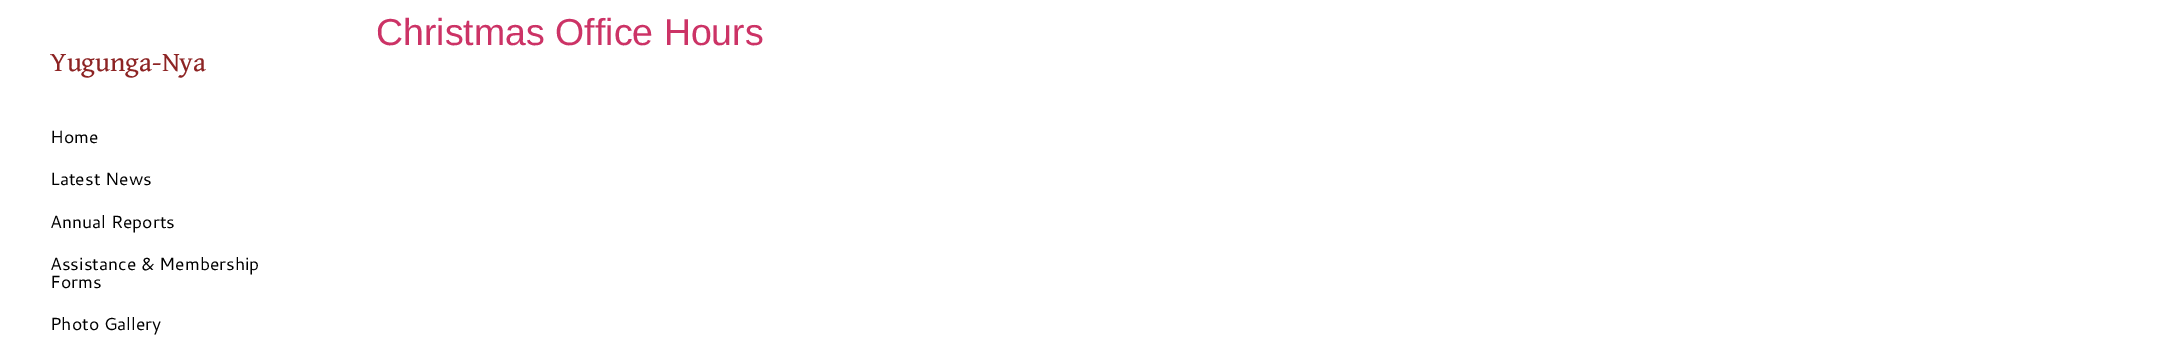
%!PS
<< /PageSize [2177 361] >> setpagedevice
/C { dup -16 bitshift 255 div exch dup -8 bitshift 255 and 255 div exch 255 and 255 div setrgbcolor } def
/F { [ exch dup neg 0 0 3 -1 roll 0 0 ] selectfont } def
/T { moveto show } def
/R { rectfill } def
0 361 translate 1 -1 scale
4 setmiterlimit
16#FFFFFF C
0 0 2177 361 R
/LiberationSans-Regular 37.5 F
16#CC3366 C
(Christmas Office Hours) 376 45 T
/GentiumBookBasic-Regular 27.5 F
16#8D2424 C
(Yugunga-Nya) 50 71 T
/Cantarell-Regular 17.5 F
16#000000 C
(Home) 50 143 T
(Latest News) 50 185 T
(Annual Reports) 50 228 T
(Assistance & Membership) 50 270 T
(Forms) 50 288 T
(Photo Gallery) 50 330 T
showpage
